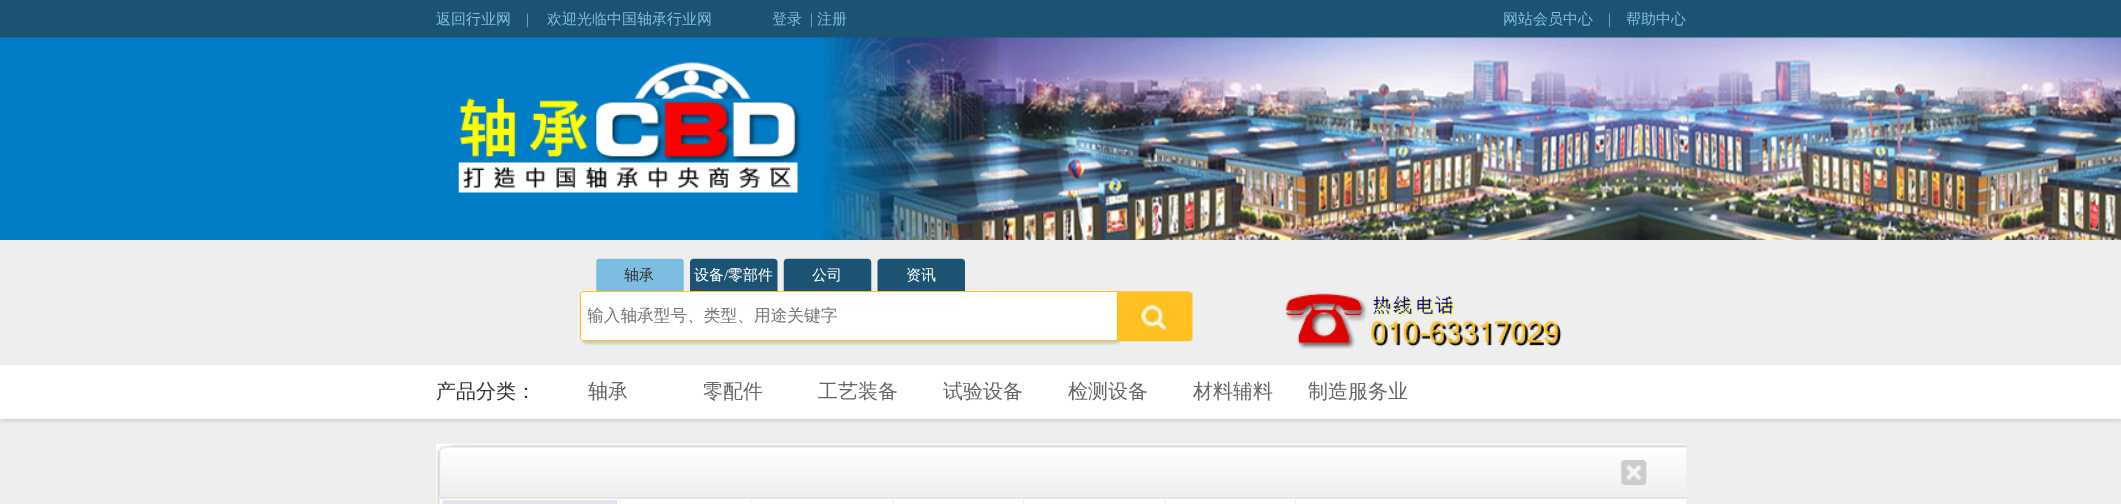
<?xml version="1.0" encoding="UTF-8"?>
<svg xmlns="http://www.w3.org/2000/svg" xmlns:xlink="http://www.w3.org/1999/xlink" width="2121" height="504">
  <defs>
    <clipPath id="clip1"><rect x="588" y="305" width="528" height="23" /></clipPath>
  </defs>
  <rect width="100%" height="100%" fill="#eeeeee" />
  <rect width="2121" height="38" fill="#1d5372" />
  <image x="0" y="37" width="2121" height="203" xlink:href="image1.png" />
  <image x="458" y="62" width="344" height="131" xlink:href="image2.png" />
  <image x="596" y="258" width="88" height="33" xlink:href="image3.png" />
  <image x="690" y="258" width="88" height="33" xlink:href="image4.png" />
  <image x="783" y="258" width="89" height="33" xlink:href="image5.png" />
  <image x="877" y="258" width="88" height="33" xlink:href="image6.png" />
  <rect x="583" y="294" width="537" height="50" rx="4" fill="#cccccc" filter="blur(1px)" />
  <path d="M 584 291.5 h 533.5 v 49 h -533.5 c -2 0 -3.5 -1.5 -3.5 -3.5 v -42 c 0 -2 1.5 -3.5 3.5 -3.5 z" fill="#ffffff" stroke="#ffc120" />
  <image x="1117" y="291" width="76" height="51" xlink:href="image7.png" />
  <image x="1285" y="293" width="277" height="56" xlink:href="image8.png" />
  <rect y="368" width="2121" height="53" fill="#cccccc" filter="blur(2px)" />
  <rect y="365" width="2121" height="54" fill="#ffffff" />
  <image x="436" y="443" width="1251" height="61" xlink:href="image9.png" />
  <image x="1621" y="460" width="26" height="25" xlink:href="image10.png" />
  <rect x="439" y="496" width="1" height="1" fill="#eeeeee" />
  <rect x="439" y="498" width="1" height="6" fill="#eeeeee" />
  <image x="442" y="500" width="176" height="4" xlink:href="image11.png" />
  <rect x="620" y="498" width="1" height="6" fill="#eeeeee" />
  <rect x="750" y="498" width="1" height="6" fill="#eeeeee" />
  <rect x="893" y="498" width="1" height="6" fill="#eeeeee" />
  <rect x="1023" y="498" width="1" height="6" fill="#eeeeee" />
  <rect x="1165" y="498" width="1" height="6" fill="#eeeeee" />
  <rect x="1295" y="498" width="1" height="6" fill="#eeeeee" />
  <text x="436" y="24" style="font-family: WenQuanYi Zen Hei; font-size: 15px; font-weight: 500; fill: #7dbde1">返回行业网</text>
  <text x="526" y="24" style="font-family: Liberation Serif; font-size: 15px; fill: #7dbde1">|</text>
  <text x="547" y="24" style="font-family: WenQuanYi Zen Hei; font-size: 15px; font-weight: 500; fill: #7dbde1">欢迎光临中国轴承行业网</text>
  <text x="772" y="24" style="font-family: WenQuanYi Zen Hei; font-size: 15px; font-weight: 500; fill: #7dbde1">登录</text>
  <text x="810" y="24" style="font-family: Liberation Serif; font-size: 15px; fill: #7dbde1">|</text>
  <text x="817" y="24" style="font-family: WenQuanYi Zen Hei; font-size: 15px; font-weight: 500; fill: #7dbde1">注册</text>
  <text x="1503" y="24" style="font-family: WenQuanYi Zen Hei; font-size: 15px; font-weight: 500; fill: #7dbde1">网站会员中心</text>
  <text x="1608" y="24" style="font-family: Liberation Serif; font-size: 15px; fill: #7dbde1">|</text>
  <text x="1626" y="24" style="font-family: WenQuanYi Zen Hei; font-size: 15px; font-weight: 500; fill: #7dbde1">帮助中心</text>
  <text x="624" y="280" style="font-family: WenQuanYi Zen Hei; font-size: 15px; font-weight: 500; fill: #333333">轴承</text>
  <text x="694" y="280" style="font-family: WenQuanYi Zen Hei; font-size: 15px; font-weight: 500; fill: #ffffff">设备</text>
  <text x="724" y="280" style="font-family: Liberation Serif; font-size: 15px; fill: #ffffff">/</text>
  <text x="728" y="280" style="font-family: WenQuanYi Zen Hei; font-size: 15px; font-weight: 500; fill: #ffffff">零部件</text>
  <text x="812" y="280" style="font-family: WenQuanYi Zen Hei; font-size: 15px; font-weight: 500; fill: #ffffff">公司</text>
  <text x="906" y="280" style="font-family: WenQuanYi Zen Hei; font-size: 15px; font-weight: 500; fill: #ffffff">资讯</text>
  <g clip-path="url(#clip1)">
    <text x="587" y="321" style="font-family: WenQuanYi Zen Hei; font-size: 16.7px; font-weight: 500; fill: #757575">输入轴承型号、类型、用途关键字</text>
  </g>
  <text x="436" y="398" style="font-family: WenQuanYi Zen Hei; font-size: 20px; font-weight: 500; fill: #333333">产品分类：</text>
  <text x="588" y="398" style="font-family: WenQuanYi Zen Hei; font-size: 20px; font-weight: 500; fill: #666666">轴承</text>
  <text x="703" y="398" style="font-family: WenQuanYi Zen Hei; font-size: 20px; font-weight: 500; fill: #666666">零配件</text>
  <text x="818" y="398" style="font-family: WenQuanYi Zen Hei; font-size: 20px; font-weight: 500; fill: #666666">工艺装备</text>
  <text x="943" y="398" style="font-family: WenQuanYi Zen Hei; font-size: 20px; font-weight: 500; fill: #666666">试验设备</text>
  <text x="1068" y="398" style="font-family: WenQuanYi Zen Hei; font-size: 20px; font-weight: 500; fill: #666666">检测设备</text>
  <text x="1193" y="398" style="font-family: WenQuanYi Zen Hei; font-size: 20px; font-weight: 500; fill: #666666">材料辅料</text>
  <text x="1308" y="398" style="font-family: WenQuanYi Zen Hei; font-size: 20px; font-weight: 500; fill: #666666">制造服务业</text>
</svg>
